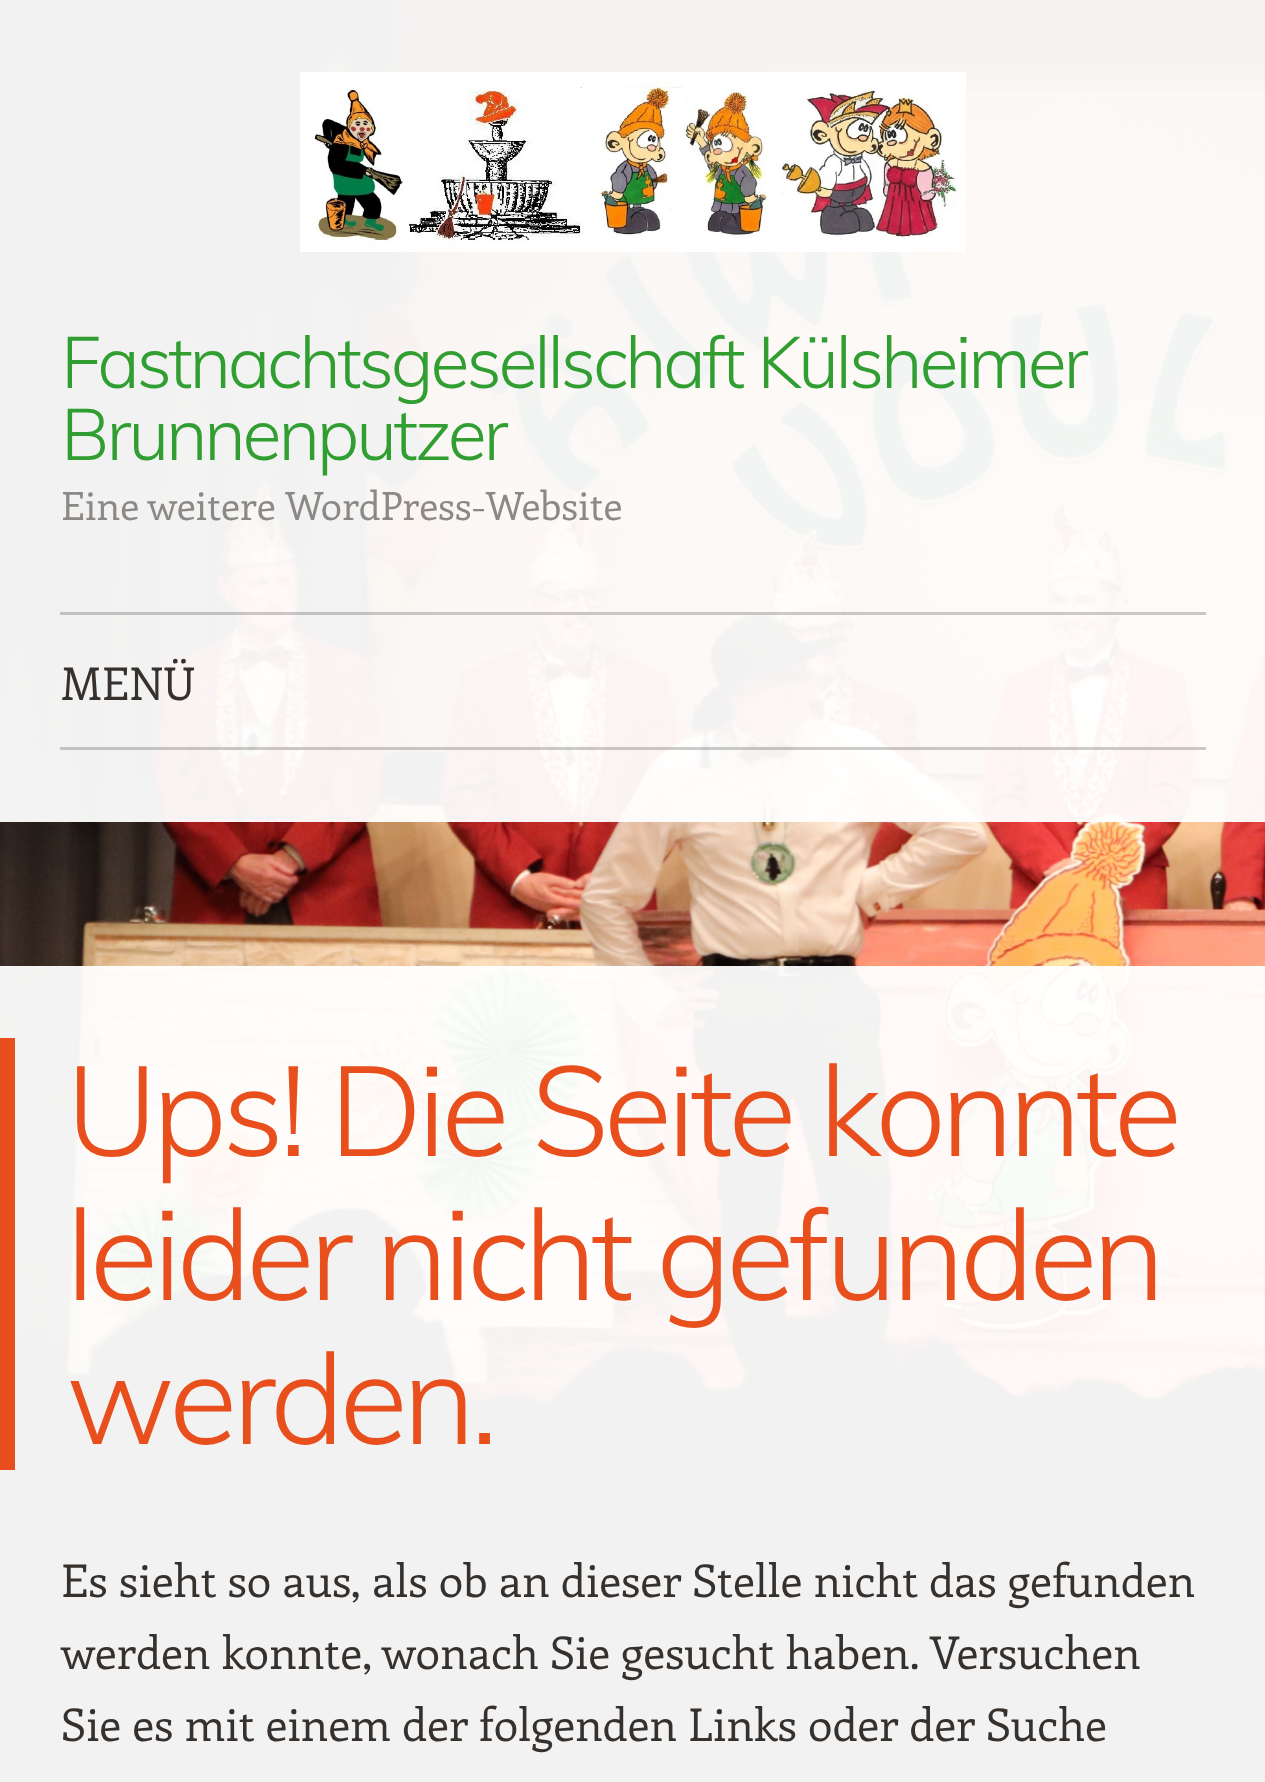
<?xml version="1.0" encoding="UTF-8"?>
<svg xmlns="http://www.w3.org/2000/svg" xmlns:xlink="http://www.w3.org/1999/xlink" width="1265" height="1782">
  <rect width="100%" height="100%" fill="#ffffff" />
  <image x="0" y="0" width="1265" height="1782" xlink:href="image1.png" />
  <rect width="1265" height="822" fill="#ffffff" fill-opacity="0.95" />
  <image x="300" y="72" width="666" height="180" xlink:href="image2.png" />
  <rect x="60" y="612" width="1146" height="3" fill="#000000" fill-opacity="0.2" />
  <rect x="60" y="747" width="1146" height="3" fill="#000000" fill-opacity="0.2" />
  <rect y="966" width="1265" height="816" fill="#ffffff" fill-opacity="0.95" />
  <rect y="1038" width="15" height="432" fill="#e94f1d" />
  <text x="61" y="388" style="font-family: Muli; font-size: 72px; font-weight: 300; letter-spacing: -3.25px; fill: #319e32">Fastnachtsgesellschaft Külsheimer</text>
  <text x="61" y="460" style="font-family: Muli; font-size: 72px; font-weight: 300; letter-spacing: -3.25px; fill: #319e32">Brunnenputzer</text>
  <text x="61" y="520" style="font-family: Enriqueta; font-size: 39px; fill: #8c8885">Eine weitere WordPress-Website</text>
  <text x="61" y="700" style="font-family: Enriqueta; font-size: 45px; fill: #36312d">MENÜ</text>
  <text x="66" y="1156" style="font-family: Muli; font-size: 126px; font-weight: 300; letter-spacing: -5px; fill: #e94f1d">Ups! Die Seite konnte</text>
  <text x="66" y="1300" style="font-family: Muli; font-size: 126px; font-weight: 300; letter-spacing: -5px; fill: #e94f1d">leider nicht gefunden</text>
  <text x="66" y="1444" style="font-family: Muli; font-size: 126px; font-weight: 300; letter-spacing: -5px; fill: #e94f1d">werden.</text>
  <text x="61" y="1597" style="font-family: Enriqueta; font-size: 45px; fill: #36312d">Es sieht so aus, als ob an dieser Stelle nicht das gefunden</text>
  <text x="61" y="1669" style="font-family: Enriqueta; font-size: 45px; fill: #36312d">werden konnte, wonach Sie gesucht haben. Versuchen</text>
  <text x="61" y="1741" style="font-family: Enriqueta; font-size: 45px; fill: #36312d">Sie es mit einem der folgenden Links oder der Suche</text>
</svg>
